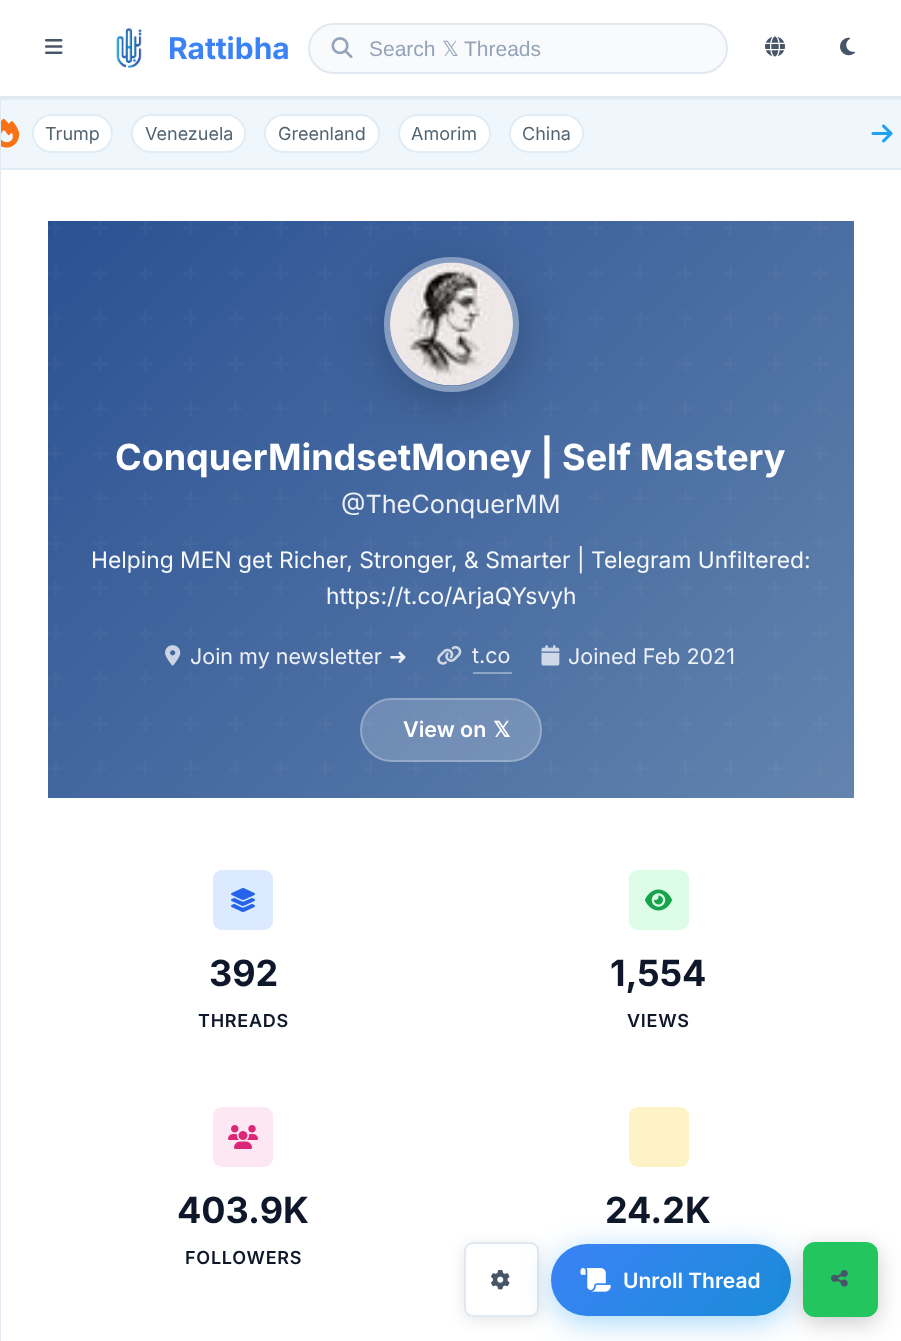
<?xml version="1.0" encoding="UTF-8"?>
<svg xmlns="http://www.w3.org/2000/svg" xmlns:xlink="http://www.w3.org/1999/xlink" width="901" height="1341">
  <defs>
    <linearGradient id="g1" gradientUnits="userSpaceOnUse" x1="105" y1="164" x2="797" y2="855"><stop offset="0" stop-color="#2b5193" /><stop offset="1" stop-color="#6284ae" /></linearGradient>
    <clipPath id="clip1"><path d="M 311 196 h 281 v 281 h -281 z m 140.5 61 c 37.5 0 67.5 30 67.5 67.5 c 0 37.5 -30 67.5 -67.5 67.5 c -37.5 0 -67.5 -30 -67.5 -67.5 c 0 -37.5 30 -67.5 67.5 -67.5 z" clip-rule="evenodd" /></clipPath>
    <linearGradient id="g2" gradientUnits="userSpaceOnUse" x1="593" y1="1202" x2="749" y2="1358"><stop offset="0" stop-color="#3b82f6" /><stop offset="1" stop-color="#1a8cd8" /></linearGradient>
  </defs>
  <rect width="100%" height="100%" fill="#ffffff" />
  <rect x="1" y="100" width="900" height="68" fill="#f0f7fc" />
  <rect x="-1" y="99" width="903" height="70" fill="none" stroke="#e1ecf4" stroke-width="2" />
  <rect y="98" width="1" height="1243" fill="#e2e8f0" />
  <rect y="96" width="901" height="2" fill="#e2e8f0" />
  <image x="45" y="39" width="18" height="15" xlink:href="image1.png" />
  <image x="116" y="27" width="26" height="42" xlink:href="image2.png" />
  <rect x="309" y="24" width="418" height="49" rx="24.5" fill="#f8fafc" stroke="#e2e8f0" stroke-width="2" />
  <image x="331" y="37" width="22" height="22" xlink:href="image3.png" />
  <image x="765" y="36" width="20" height="21" xlink:href="image4.png" />
  <image x="840" y="37" width="15" height="19" xlink:href="image5.png" />
  <image x="1" y="118" width="19" height="30" xlink:href="image6.png" />
  <rect x="33" y="115" width="79" height="37" rx="18.5" fill="#ffffff" stroke="#e1ecf4" stroke-width="2" />
  <rect x="132" y="115" width="113" height="37" rx="18.5" fill="#ffffff" stroke="#e1ecf4" stroke-width="2" />
  <rect x="265" y="115" width="114" height="37" rx="18.5" fill="#ffffff" stroke="#e1ecf4" stroke-width="2" />
  <rect x="399" y="115" width="91" height="37" rx="18.5" fill="#ffffff" stroke="#e1ecf4" stroke-width="2" />
  <rect x="510" y="115" width="73" height="37" rx="18.5" fill="#ffffff" stroke="#e1ecf4" stroke-width="2" />
  <image x="871" y="124" width="22" height="19" xlink:href="image7.png" />
  <rect x="48" y="221" width="806" height="577" fill="url(#g1)" />
  <image x="48" y="221" width="780" height="555" xlink:href="image8.png" />
  <g clip-path="url(#clip1)">
    <rect x="384" y="269" width="135" height="135" rx="67.5" fill="#000000" fill-opacity="0.2" filter="blur(24px)" />
  </g>
  <circle cx="451.5" cy="324.5" r="67.5" fill="#ffffff" fill-opacity="0.1" />
  <circle cx="451.5" cy="324.5" r="64.5" fill="none" stroke="#ffffff" stroke-opacity="0.3" stroke-width="6" />
  <image x="390" y="262" width="123" height="124" xlink:href="image9.png" />
  <image x="165" y="645" width="16" height="21" xlink:href="image10.png" />
  <image x="437" y="646" width="25" height="19" xlink:href="image11.png" />
  <rect x="473" y="672" width="39" height="2" fill="#ffffff" fill-opacity="0.36" />
  <image x="541" y="645" width="19" height="21" xlink:href="image12.png" />
  <rect x="360" y="698" width="182" height="64" rx="32" fill="#ffffff" fill-opacity="0.2" />
  <rect x="361" y="699" width="180" height="62" rx="31" fill="none" stroke="#ffffff" stroke-opacity="0.25" stroke-width="2" />
  <rect x="213" y="870" width="60" height="60" rx="9" fill="#dbeafe" />
  <image x="231" y="888" width="24" height="24" xlink:href="image13.png" />
  <rect x="629" y="870" width="60" height="60" rx="9" fill="#dcfce7" />
  <image x="645" y="889" width="27" height="22" xlink:href="image14.png" />
  <rect x="213" y="1107" width="60" height="60" rx="9" fill="#fce7f3" />
  <image x="228" y="1125" width="30" height="24" xlink:href="image15.png" />
  <rect x="629" y="1107" width="60" height="60" rx="9" fill="#fef3c7" />
  <rect x="464" y="1245" width="75" height="75" rx="9" fill="#000000" fill-opacity="0.1" filter="blur(7.5px)" />
  <rect x="465" y="1243" width="73" height="73" rx="8" fill="#ffffff" stroke="#e2e8f0" stroke-width="2" />
  <image x="491" y="1269" width="19" height="21" xlink:href="image16.png" />
  <rect x="551" y="1250" width="240" height="72" rx="36" fill="#1d9bf0" fill-opacity="0.4" filter="blur(15px)" />
  <rect x="551" y="1244" width="240" height="72" rx="36" fill="url(#g2)" />
  <image x="580" y="1268" width="31" height="24" xlink:href="image17.png" />
  <rect x="803" y="1248" width="75" height="75" rx="12" fill="#000000" fill-opacity="0.2" filter="blur(11px)" />
  <rect x="803" y="1242" width="75" height="75" rx="12" fill="#22c55e" />
  <image x="831" y="1270" width="17" height="17" xlink:href="image18.png" />
  <text x="168" y="59" style="font-family: Inter; font-size: 30px; font-weight: bold; fill: #3b82f6">Rattibha</text>
  <text x="369" y="56" style="font-family: Liberation Sans; font-size: 21px; fill: #94a3b8">Search</text>
  <text x="442" y="56" style="font-family: DejaVu Sans; font-size: 21px; fill: #94a3b8">𝕏</text>
  <text x="464" y="56" style="font-family: Liberation Sans; font-size: 21px; fill: #94a3b8">Threads</text>
  <text x="45" y="140" style="font-family: Inter; font-size: 18px; fill: #536471">Trump</text>
  <text x="145" y="140" style="font-family: Inter; font-size: 18px; fill: #536471">Venezuela</text>
  <text x="278" y="140" style="font-family: Inter; font-size: 18px; fill: #536471">Greenland</text>
  <text x="411" y="140" style="font-family: Inter; font-size: 18px; fill: #536471">Amorim</text>
  <text x="522" y="140" style="font-family: Inter; font-size: 18px; fill: #536471">China</text>
  <text x="115" y="470" style="font-family: Inter; font-size: 36px; font-weight: bold; fill: #ffffff">ConquerMindsetMoney | Self Mastery</text>
  <text x="341" y="513" style="font-family: Inter; font-size: 25.25px; fill: #edf0f6">@TheConquerMM</text>
  <text x="91" y="568" style="font-family: Inter; font-size: 22.8px; fill: #f6f8fa">Helping MEN get Richer, Stronger, &amp; Smarter | Telegram Unfiltered:</text>
  <text x="326" y="604" style="font-family: Inter; font-size: 22.8px; fill: #f6f8fa">https://t.co/ArjaQYsvyh</text>
  <text x="190" y="664" style="font-family: Inter; font-size: 21.5px; fill: #edf0f6">Join my newsletter</text>
  <text x="389" y="664" style="font-family: DejaVu Sans; font-size: 21.5px; fill: #edf0f6">➜</text>
  <text x="472" y="663" style="font-family: Inter; font-size: 21.5px; fill: #edf0f6">t.co</text>
  <text x="568" y="664" style="font-family: Inter; font-size: 21.5px; fill: #edf0f6">Joined Feb 2021</text>
  <text x="403" y="737" style="font-family: Inter; font-size: 21.5px; font-weight: 600; fill: #ffffff">View on</text>
  <text x="493" y="737" style="font-family: DejaVu Sans; font-size: 21.5px; font-weight: bold; fill: #ffffff">𝕏</text>
  <text x="209" y="986" style="font-family: Inter; font-size: 36px; font-weight: bold; fill: #0f172a">392</text>
  <text x="198" y="1027" style="font-family: Inter; font-size: 18px; font-weight: 600; letter-spacing: 0.75px; fill: #0f172a">THREADS</text>
  <text x="610" y="986" style="font-family: Inter; font-size: 36px; font-weight: bold; fill: #0f172a">1,554</text>
  <text x="627" y="1027" style="font-family: Inter; font-size: 18px; font-weight: 600; letter-spacing: 0.75px; fill: #0f172a">VIEWS</text>
  <text x="177" y="1223" style="font-family: Inter; font-size: 36px; font-weight: bold; fill: #0f172a">403.9K</text>
  <text x="185" y="1264" style="font-family: Inter; font-size: 18px; font-weight: 600; letter-spacing: 0.75px; fill: #0f172a">FOLLOWERS</text>
  <text x="605" y="1223" style="font-family: Inter; font-size: 36px; font-weight: bold; fill: #0f172a">24.2K</text>
  <text x="623" y="1288" style="font-family: Inter; font-size: 21px; font-weight: 600; fill: #ffffff">Unroll Thread</text>
</svg>
